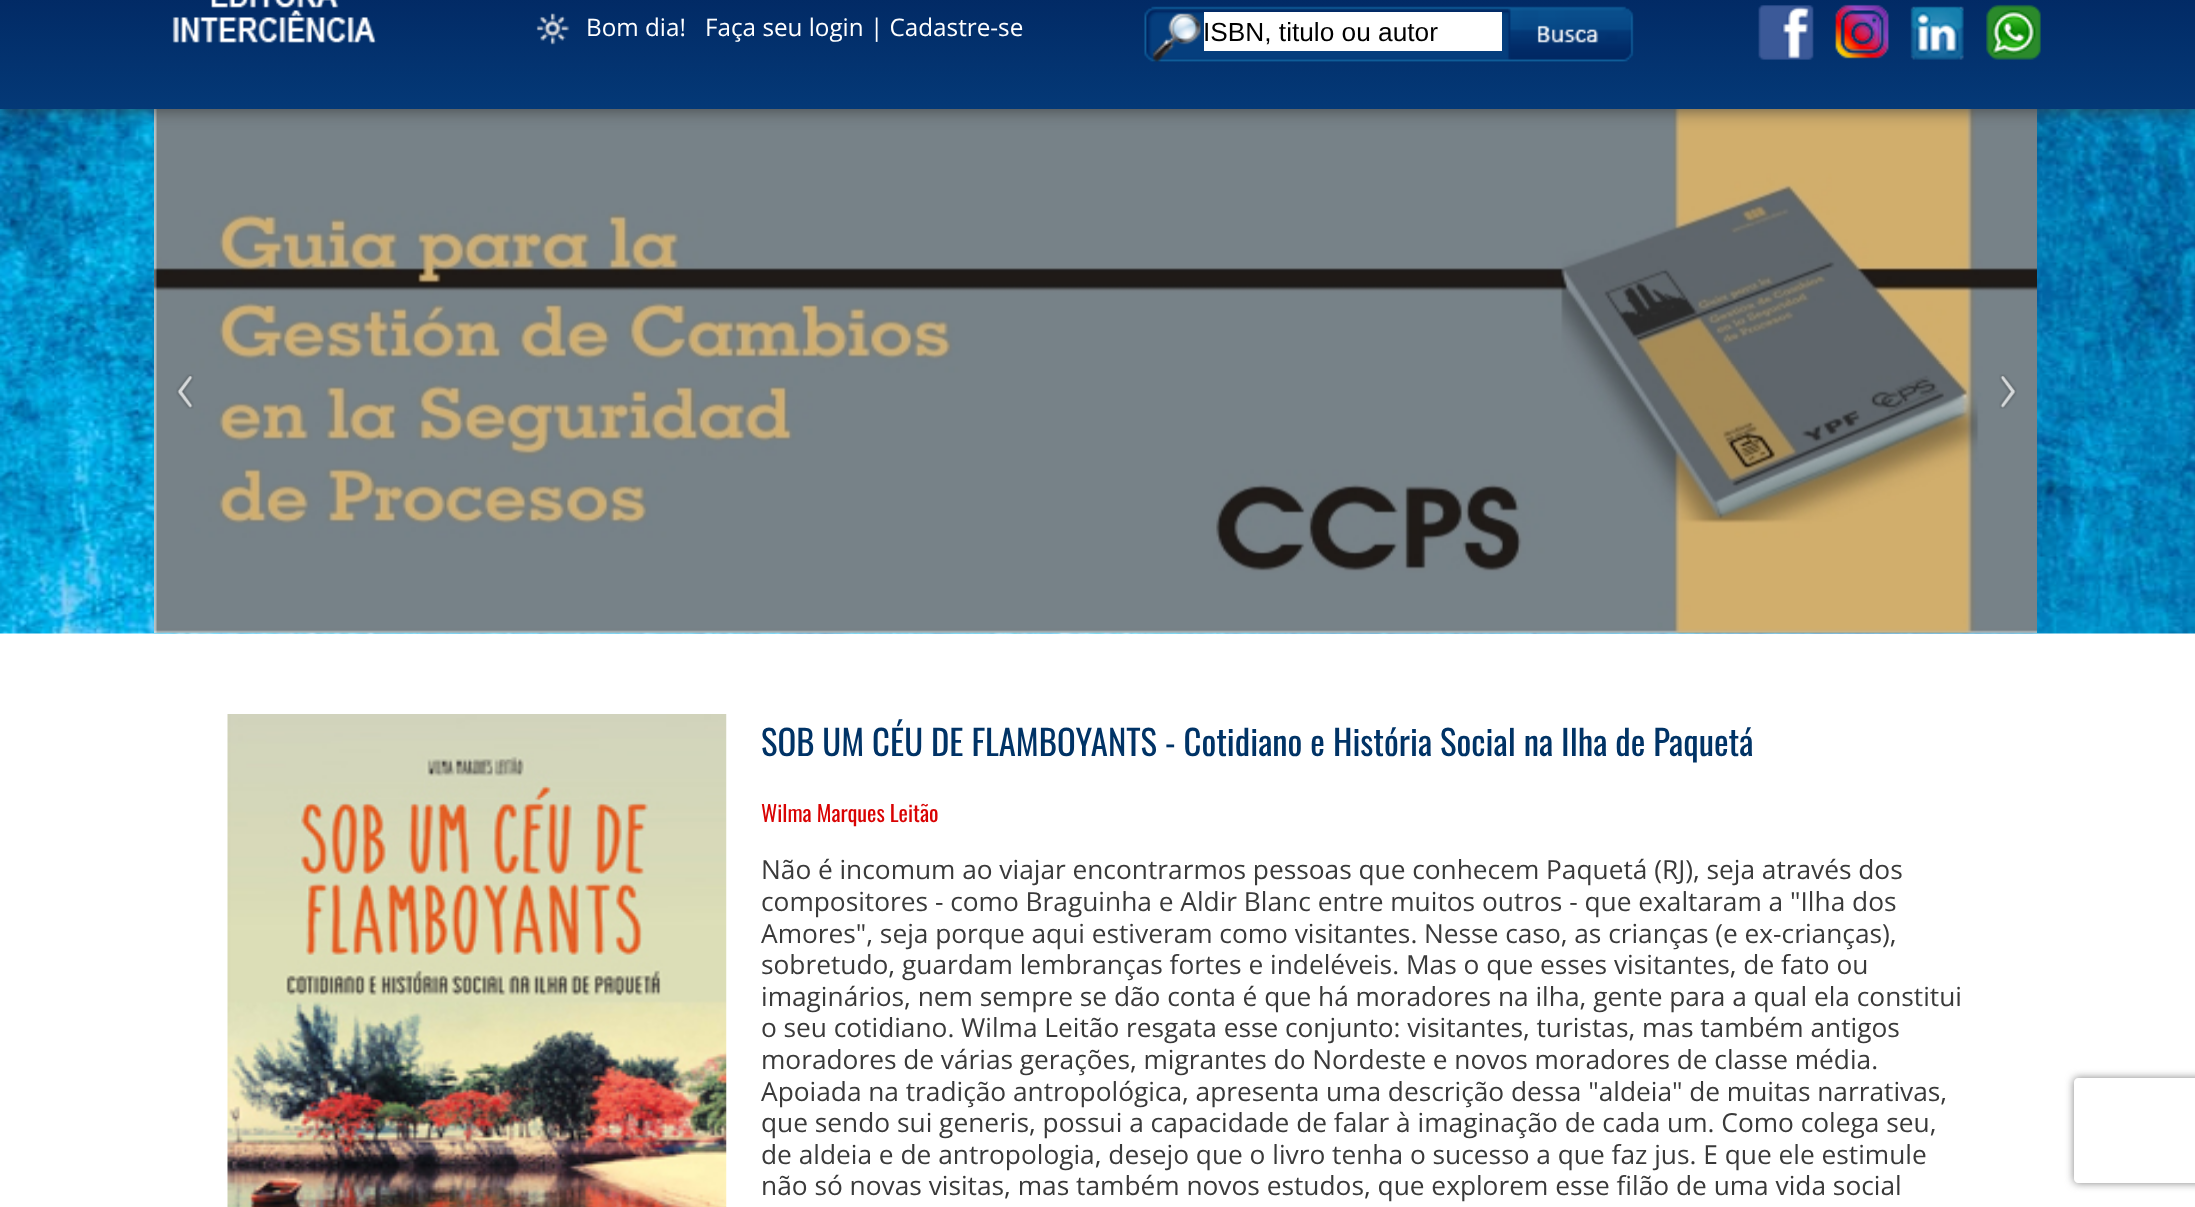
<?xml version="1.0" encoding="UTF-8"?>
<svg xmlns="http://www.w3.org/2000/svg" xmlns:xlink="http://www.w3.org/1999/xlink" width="2195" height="1207">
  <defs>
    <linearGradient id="g1" gradientUnits="userSpaceOnUse" x1="1098" y1="-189" x2="1098" y2="109"><stop offset="0" stop-color="#021a43" /><stop offset="0.5" stop-color="#01255f" /><stop offset="1" stop-color="#043977" /></linearGradient>
    <clipPath id="clip1"><path d="M 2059 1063 h 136 v 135 h -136 z m 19 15 h 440 c 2 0 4 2 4 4 v 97 c 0 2 -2 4 -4 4 h -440 c -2 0 -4 -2 -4 -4 v -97 c 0 -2 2 -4 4 -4 z" clip-rule="evenodd" /></clipPath>
  </defs>
  <rect width="100%" height="100%" fill="#ffffff" />
  <image x="0" y="109" width="2195" height="525" xlink:href="image9.png" />
  <image x="154" y="109" width="1883" height="524" xlink:href="image10.png" />
  <rect y="-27" width="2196" height="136" fill="#333333" fill-opacity="0.8" filter="blur(9px)" />
  <rect width="2195" height="109" fill="url(#g1)" />
  <image x="172" y="0" width="205" height="43" xlink:href="image1.png" />
  <image x="536" y="13" width="34" height="32" xlink:href="image2.png" />
  <image x="1144" y="6" width="490" height="56" xlink:href="image3.png" />
  <rect x="1204" y="12" width="298" height="39" fill="#ffffff" />
  <image x="1537" y="25" width="62" height="18" xlink:href="image4.png" />
  <image x="1758" y="5" width="56" height="55" xlink:href="image5.png" />
  <image x="1835" y="4" width="54" height="55" xlink:href="image6.png" />
  <image x="1910" y="6" width="54" height="54" xlink:href="image7.png" />
  <image x="1986" y="4" width="55" height="56" xlink:href="image8.png" />
  <image x="176" y="374" width="18" height="35" xlink:href="image11.png" />
  <image x="1999" y="374" width="18" height="35" xlink:href="image12.png" />
  <image x="227" y="714" width="500" height="493" xlink:href="image13.png" />
  <g clip-path="url(#clip1)">
    <rect x="2074" y="1078" width="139" height="105" rx="4" fill="#808080" filter="blur(4.5px)" />
  </g>
  <text x="586" y="36" style="font-family: Open Sans; font-size: 24.25px; fill: #ffffff">Bom dia!</text>
  <text x="705" y="36" style="font-family: Open Sans; font-size: 24.25px; fill: #ffffff">Faça seu login | Cadastre-se</text>
  <text x="1203" y="41" style="font-family: Liberation Sans; font-size: 26.25px; fill: #000000">ISBN, titulo ou autor</text>
  <text x="761" y="756" style="font-family: Oswald; font-size: 34.75px; fill: #003366">SOB UM CÉU DE FLAMBOYANTS - Cotidiano e História Social na Ilha de Paquetá</text>
  <text x="761" y="822" style="font-family: Oswald; font-size: 22.25px; fill: #d90303">Wilma Marques Leitão</text>
  <text x="761" y="879" word-spacing="-0.1" style="font-family: Open Sans; font-size: 26.3px; fill: #3a3a3a">Não é incomum ao viajar encontrarmos pessoas que conhecem Paquetá (RJ), seja através dos</text>
  <text x="761" y="911" style="font-family: Open Sans; font-size: 26.3px; fill: #3a3a3a">compositores - como Braguinha e Aldir Blanc entre muitos outros - que exaltaram a "Ilha dos</text>
  <text x="761" y="943" word-spacing="-0.1" style="font-family: Open Sans; font-size: 26.3px; fill: #3a3a3a">Amores", seja porque aqui estiveram como visitantes. Nesse caso, as crianças (e ex-crianças),</text>
  <text x="761" y="974" style="font-family: Open Sans; font-size: 26.3px; fill: #3a3a3a">sobretudo, guardam lembranças fortes e indeléveis. Mas o que esses visitantes, de fato ou</text>
  <text x="761" y="1006" style="font-family: Open Sans; font-size: 26.3px; fill: #3a3a3a">imaginários, nem sempre se dão conta é que há moradores na ilha, gente para a qual ela constitui</text>
  <text x="761" y="1037" word-spacing="-0.1" style="font-family: Open Sans; font-size: 26.3px; fill: #3a3a3a">o seu cotidiano. Wilma Leitão resgata esse conjunto: visitantes, turistas, mas também antigos</text>
  <text x="761" y="1069" word-spacing="-0.1" style="font-family: Open Sans; font-size: 26.3px; fill: #3a3a3a">moradores de várias gerações, migrantes do Nordeste e novos moradores de classe média.</text>
  <text x="761" y="1101" word-spacing="-0.1" style="font-family: Open Sans; font-size: 26.3px; fill: #3a3a3a">Apoiada na tradição antropológica, apresenta uma descrição dessa "aldeia" de muitas narrativas,</text>
  <text x="761" y="1132" style="font-family: Open Sans; font-size: 26.3px; fill: #3a3a3a">que sendo sui generis, possui a capacidade de falar à imaginação de cada um. Como colega seu,</text>
  <text x="761" y="1164" style="font-family: Open Sans; font-size: 26.3px; fill: #3a3a3a">de aldeia e de antropologia, desejo que o livro tenha o sucesso a que faz jus. E que ele estimule</text>
  <text x="761" y="1195" style="font-family: Open Sans; font-size: 26.3px; fill: #3a3a3a">não só novas visitas, mas também novos estudos, que explorem esse filão de uma vida social</text>
</svg>
